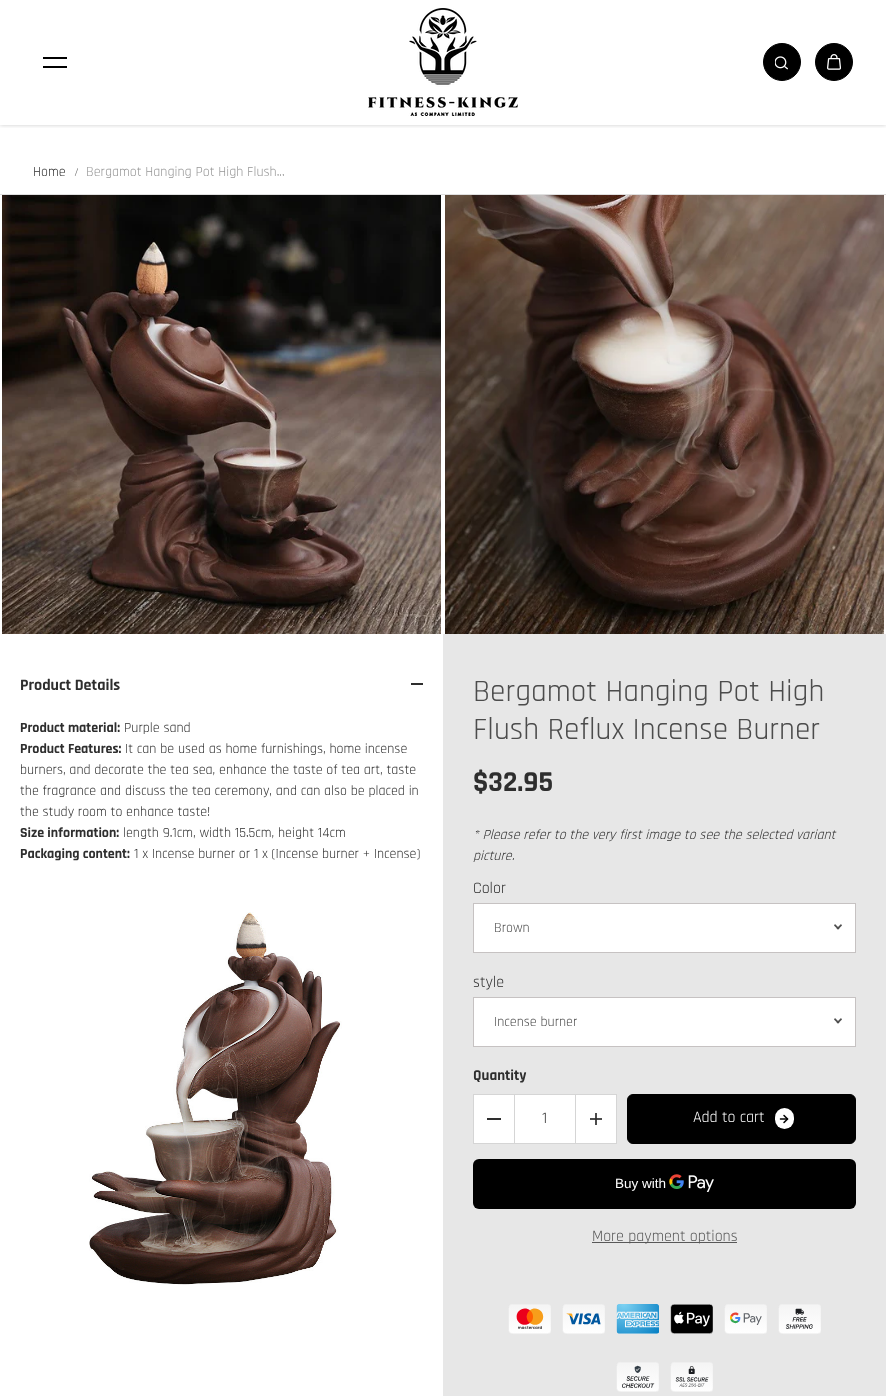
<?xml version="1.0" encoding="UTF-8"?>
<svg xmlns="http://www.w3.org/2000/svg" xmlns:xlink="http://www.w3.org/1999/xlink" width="886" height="1396">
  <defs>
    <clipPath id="clip1"><rect x="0" y="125" width="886" height="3" /></clipPath>
  </defs>
  <rect width="100%" height="100%" fill="#ffffff" />
  <g clip-path="url(#clip1)">
    <rect width="886" height="125" fill="#000000" fill-opacity="0.21" filter="blur(2px)" />
  </g>
  <rect x="43" y="57" width="24" height="2" fill="#000000" />
  <rect x="43" y="66" width="24" height="2" fill="#000000" />
  <image x="368" y="8" width="150" height="108" xlink:href="image1.png" />
  <circle cx="782" cy="62" r="18.5" fill="#000000" stroke="#000000" />
  <image x="775" y="56" width="13" height="14" xlink:href="image2.png" />
  <circle cx="834" cy="62" r="18.5" fill="#000000" stroke="#000000" />
  <image x="827" y="54" width="14" height="16" xlink:href="image3.png" />
  <rect y="194" width="886" height="1" fill="#dfdfdf" />
  <image x="2" y="195" width="439" height="439" xlink:href="image4.png" />
  <image x="445" y="195" width="439" height="439" xlink:href="image5.png" />
  <rect x="443" y="634" width="443" height="762" fill="#e7e7e7" />
  <rect x="411" y="683" width="12" height="2" fill="#2e2e2e" />
  <image x="89" y="912" width="253" height="373" xlink:href="image6.png" />
  <rect x="473.5" y="903.5" width="382" height="49" fill="#ffffff" stroke="#c6c2c2" />
  <path d="M 841 924 l 1 1.5 l -4 4 l -1.5 -1 z" fill="#4e4e4e" />
  <path d="M 835 924 l 4.5 4.5 l -1.5 1 l -4 -4 z" fill="#4e4e4e" />
  <rect x="473.5" y="997.5" width="382" height="49" fill="#ffffff" stroke="#c6c2c2" />
  <path d="M 841 1018 l 1 1.5 l -4 4 l -1.5 -1 z" fill="#4e4e4e" />
  <path d="M 835 1018 l 4.5 4.5 l -1.5 1 l -4 -4 z" fill="#4e4e4e" />
  <rect x="473.5" y="1094.5" width="41" height="49" fill="#ffffff" stroke="#d5d5d5" />
  <rect x="487" y="1118" width="14" height="2" fill="#2e2e2e" />
  <rect x="515" y="1095" width="60" height="48" fill="#ffffff" />
  <rect x="515" y="1094" width="60" height="1" fill="#d5d5d5" />
  <rect x="515" y="1143" width="60" height="1" fill="#d5d5d5" />
  <rect x="575.5" y="1094.5" width="41" height="49" fill="#ffffff" stroke="#d5d5d5" />
  <image x="590" y="1113" width="12" height="12" xlink:href="image7.png" />
  <rect x="627.5" y="1094.5" width="228" height="49" rx="5.5" fill="#000000" stroke="#000000" />
  <rect x="775" y="1108" width="19" height="21" rx="9.5" fill="#ffffff" />
  <image x="779" y="1114" width="10" height="10" xlink:href="image8.png" />
  <rect x="473" y="1159" width="383" height="50" rx="6" fill="#000000" />
  <image x="669" y="1174" width="45" height="18" xlink:href="image9.png" />
  <rect x="592" y="1242" width="145" height="1" fill="#585858" />
  <image x="508" y="1304" width="313" height="88" xlink:href="image10.png" />
  <text x="33" y="176" style="font-family: Rajdhani; font-size: 14px; fill: #2e2e2e">Home</text>
  <text x="74" y="176" style="font-family: Rajdhani; font-size: 12px; fill: #6d6d6d">/</text>
  <text x="86" y="176" style="font-family: Rajdhani; font-size: 14px; fill: #979797">Bergamot Hanging Pot High Flush...</text>
  <text x="20" y="690" style="font-family: Rajdhani; font-size: 16px; font-weight: bold; fill: #2e2e2e">Product Details</text>
  <text x="20" y="732" style="font-family: Rajdhani; font-size: 14px; font-weight: bold; fill: #2e2e2e">Product material:</text>
  <text x="124" y="732" style="font-family: Rajdhani; font-size: 14px; fill: #2e2e2e">Purple sand</text>
  <text x="20" y="753" style="font-family: Rajdhani; font-size: 14px; font-weight: bold; fill: #2e2e2e">Product Features:</text>
  <text x="125" y="753" style="font-family: Rajdhani; font-size: 14px; fill: #2e2e2e">It can be used as home furnishings, home incense</text>
  <text x="20" y="774" style="font-family: Rajdhani; font-size: 14px; fill: #2e2e2e">burners, and decorate the tea sea, enhance the taste of tea art, taste</text>
  <text x="20" y="795" style="font-family: Rajdhani; font-size: 14px; fill: #2e2e2e">the fragrance and discuss the tea ceremony, and can also be placed in</text>
  <text x="20" y="816" style="font-family: Rajdhani; font-size: 14px; fill: #2e2e2e">the study room to enhance taste!</text>
  <text x="20" y="837" style="font-family: Rajdhani; font-size: 14px; font-weight: bold; fill: #2e2e2e">Size information:</text>
  <text x="123" y="837" style="font-family: Rajdhani; font-size: 14px; fill: #2e2e2e">length 9.1cm, width 15.5cm, height 14cm</text>
  <text x="20" y="858" style="font-family: Rajdhani; font-size: 14px; font-weight: bold; fill: #2e2e2e">Packaging content:</text>
  <text x="134" y="858" style="font-family: Rajdhani; font-size: 14px; fill: #2e2e2e">1 x Incense burner or 1 x (Incense burner + Incense)</text>
  <text x="473" y="701" style="font-family: Rajdhani; font-size: 31.25px; fill: #4c4c4c">Bergamot Hanging Pot High</text>
  <text x="473" y="739" style="font-family: Rajdhani; font-size: 31.25px; fill: #4c4c4c">Flush Reflux Incense Burner</text>
  <text x="473" y="791" style="font-family: Rajdhani; font-size: 29px; font-weight: bold; fill: #2e2e2e">$32.95</text>
  <text x="473" y="839" style="font-family: Rajdhani; font-size: 14px; font-style: italic; fill: #2e2e2e">* Please refer to the very first image to see the selected variant</text>
  <text x="473" y="860" style="font-family: Rajdhani; font-size: 14px; font-style: italic; fill: #2e2e2e">picture.</text>
  <text x="473" y="893" style="font-family: Rajdhani; font-size: 16px; fill: #2e2e2e">Color</text>
  <text x="494" y="932" style="font-family: Rajdhani; font-size: 14px; fill: #4c4c4c">Brown</text>
  <text x="473" y="987" style="font-family: Rajdhani; font-size: 16px; fill: #2e2e2e">style</text>
  <text x="494" y="1026" style="font-family: Rajdhani; font-size: 14px; fill: #4c4c4c">Incense burner</text>
  <text x="473" y="1080" style="font-family: Rajdhani; font-size: 15px; font-weight: bold; fill: #2e2e2e">Quantity</text>
  <text x="542" y="1123" style="font-family: Rajdhani; font-size: 16px; fill: #2e2e2e">1</text>
  <text x="693" y="1122" style="font-family: Rajdhani; font-size: 16px; fill: #ffffff">Add to cart</text>
  <text x="615" y="1188" style="font-family: Liberation Sans; font-size: 13.5px; fill: #ffffff">Buy with</text>
  <text x="592" y="1241" style="font-family: Rajdhani; font-size: 16px; fill: #585858">More payment options</text>
</svg>
